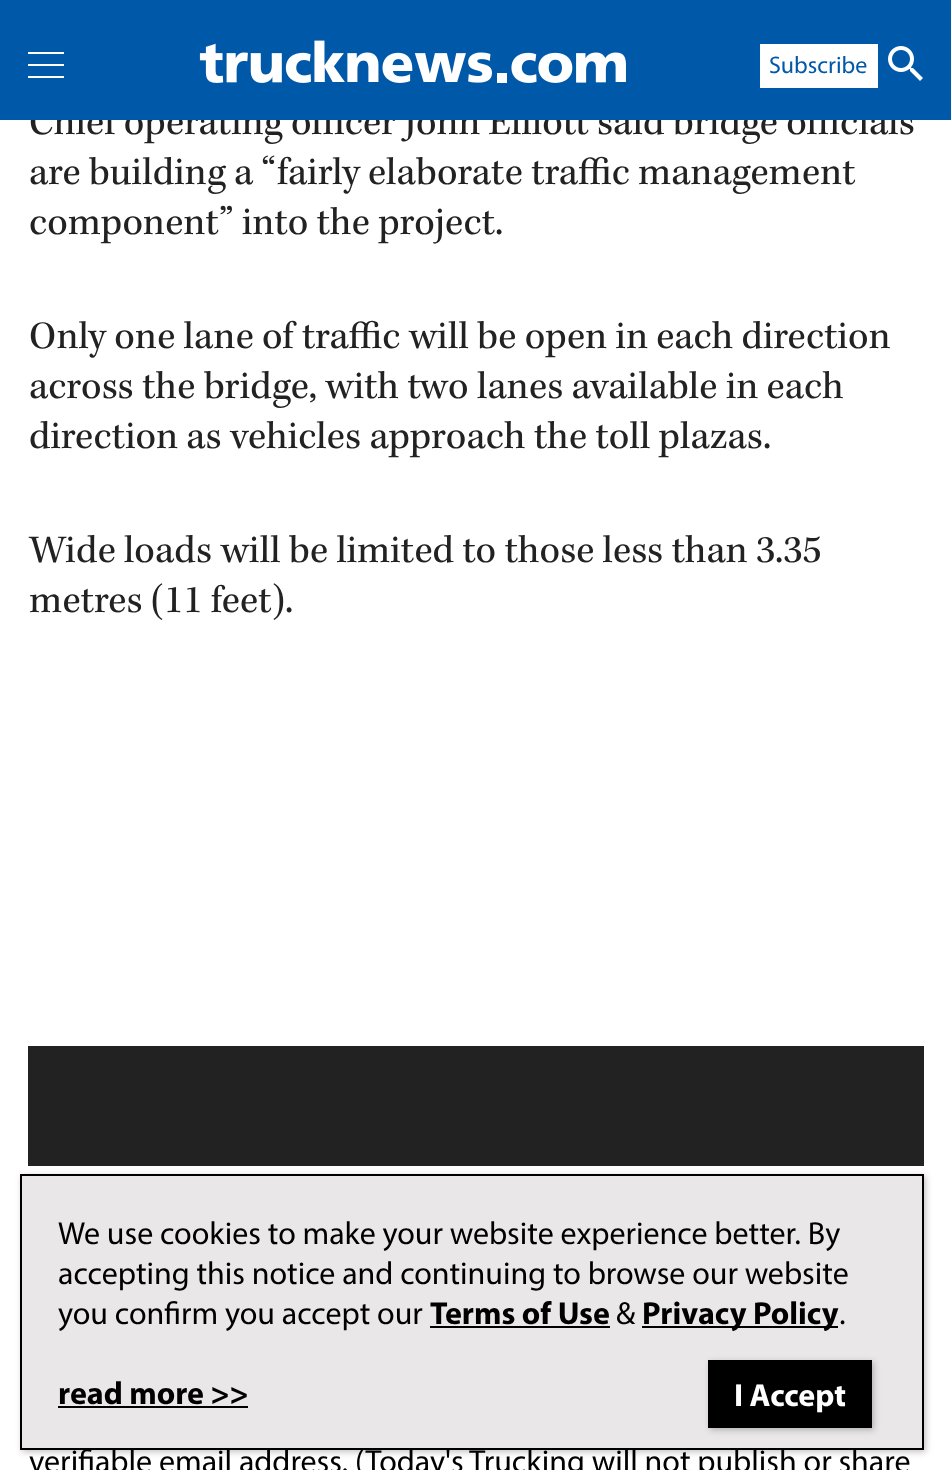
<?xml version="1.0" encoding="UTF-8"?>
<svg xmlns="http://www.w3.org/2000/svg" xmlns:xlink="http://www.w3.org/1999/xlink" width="951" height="1470">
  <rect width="100%" height="100%" fill="#ffffff" />
  <rect x="28" y="1046" width="896" height="120" fill="#222222" />
  <rect x="22" y="1176" width="904" height="276" fill="#020202" fill-opacity="0.23" filter="blur(3px)" />
  <text x="29" y="134" style="font-family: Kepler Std; font-size: 40px; fill: #222222">Chief operating officer John Elliott said bridge officials</text>
  <rect width="951" height="120" fill="#0058a9" />
  <image x="888" y="46" width="35" height="35" xlink:href="image2.png" />
  <image x="199" y="40" width="427" height="43" xlink:href="image1.png" />
  <rect x="760" y="44" width="118" height="44" fill="#ffffff" />
  <text x="769" y="73" style="font-family: Myriad; font-size: 24px; fill: #0058a9">Subscribe</text>
  <rect x="28" y="76" width="36" height="2" fill="#ffffff" />
  <rect x="28" y="64" width="36" height="2" fill="#ffffff" />
  <rect x="28" y="52" width="36" height="2" fill="#ffffff" />
  <text x="29" y="184" style="font-family: Kepler Std; font-size: 40px; fill: #222222">are building a “fairly elaborate traffic management</text>
  <text x="29" y="234" style="font-family: Kepler Std; font-size: 40px; fill: #222222">component” into the project.</text>
  <text x="29" y="348" style="font-family: Kepler Std; font-size: 40px; fill: #222222">Only one lane of traffic will be open in each direction</text>
  <text x="29" y="398" style="font-family: Kepler Std; font-size: 40px; fill: #222222">across the bridge, with two lanes available in each</text>
  <text x="29" y="448" style="font-family: Kepler Std; font-size: 40px; fill: #222222">direction as vehicles approach the toll plazas.</text>
  <text x="29" y="562" style="font-family: Kepler Std; font-size: 40px; fill: #222222">Wide loads will be limited to those less than 3.35</text>
  <text x="29" y="612" style="font-family: Kepler Std; font-size: 40px; fill: #222222">metres (11 feet).</text>
  <text x="29" y="1472" style="font-family: Myriad; font-size: 32px; fill: #000000">verifiable email address. (Today's Trucking will not publish or share</text>
  <rect x="21" y="1175" width="902" height="274" fill="#e9e7e8" stroke="#000000" stroke-width="2" />
  <text x="58" y="1244" style="font-family: Myriad; font-size: 32px; fill: #000000">We use cookies to make your website experience better. By</text>
  <text x="58" y="1284" style="font-family: Myriad; font-size: 32px; fill: #000000">accepting this notice and continuing to browse our website</text>
  <text x="58" y="1324" style="font-family: Myriad; font-size: 32px; fill: #000000">you confirm you accept our</text>
  <text x="430" y="1324" style="font-family: Myriad; font-size: 32px; font-weight: bold; fill: #000000">Terms of Use</text>
  <rect x="430" y="1326" width="180" height="2" fill="#000000" />
  <text x="616" y="1324" style="font-family: Myriad; font-size: 32px; fill: #000000">&amp;</text>
  <rect x="642" y="1326" width="196" height="2" fill="#000000" />
  <text x="642" y="1324" style="font-family: Myriad; font-size: 32px; font-weight: bold; fill: #000000">Privacy Policy</text>
  <text x="839" y="1324" style="font-family: Myriad; font-size: 32px; fill: #000000">.</text>
  <text x="58" y="1404" style="font-family: Myriad; font-size: 32px; font-weight: bold; fill: #000000">read more &gt;&gt;</text>
  <rect x="58" y="1406" width="190" height="2" fill="#000000" />
  <rect x="710" y="1362" width="164" height="68" fill="#020202" fill-opacity="0.23" filter="blur(3px)" />
  <rect x="708" y="1360" width="164" height="68" fill="#000000" />
  <text x="734" y="1406" style="font-family: Myriad; font-size: 32px; font-weight: bold; fill: #ffffff">I Accept</text>
</svg>
